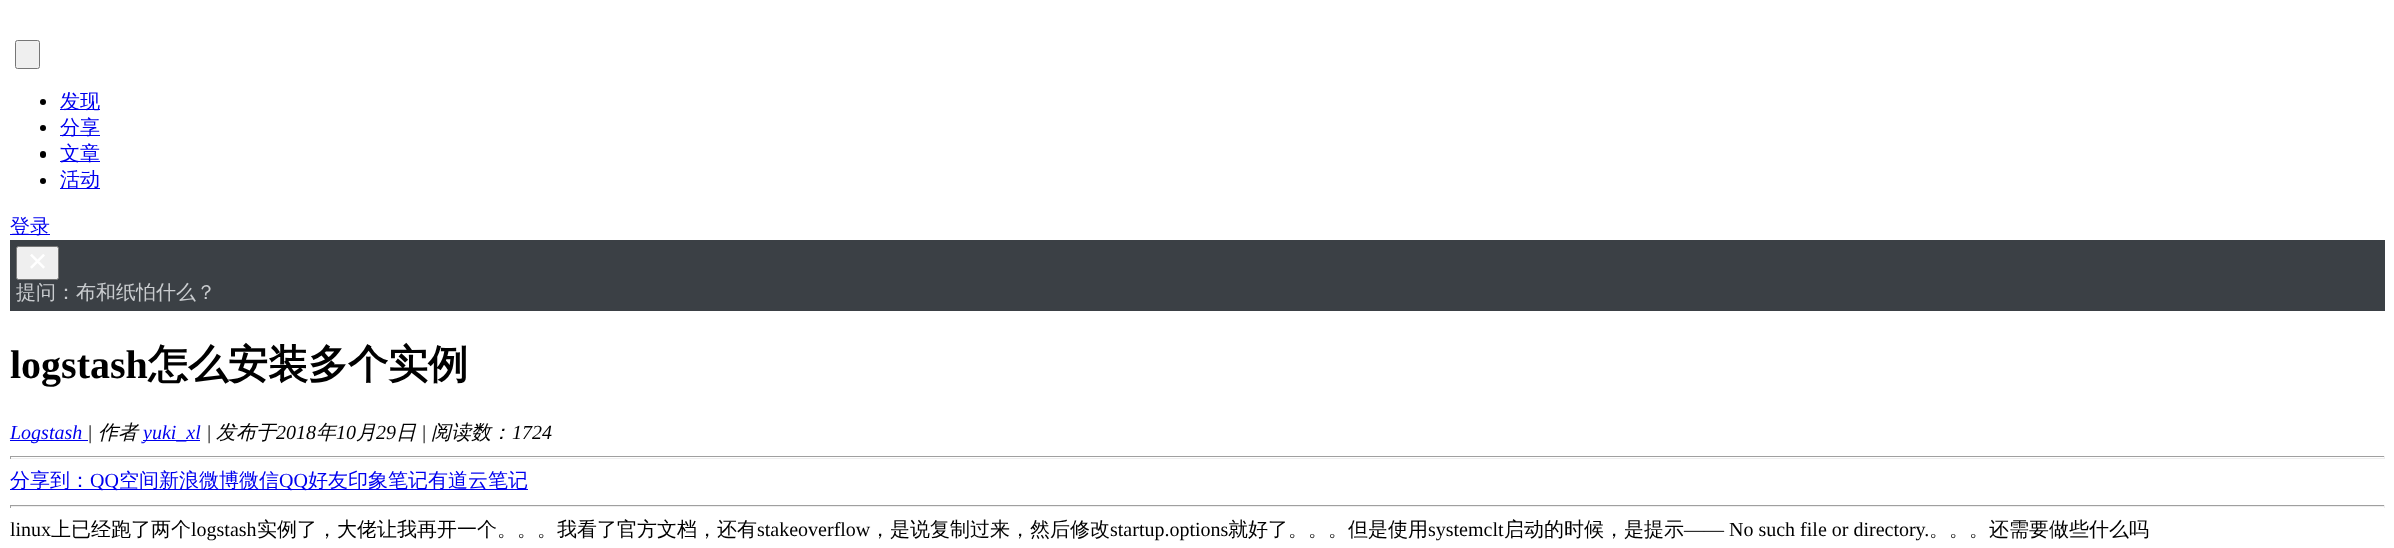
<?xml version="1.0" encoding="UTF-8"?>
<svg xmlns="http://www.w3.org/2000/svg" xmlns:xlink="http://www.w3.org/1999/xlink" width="2394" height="548">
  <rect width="100%" height="100%" fill="#ffffff" />
  <rect x="15.5" y="40.5" width="24" height="28" rx="2" fill="#efefef" stroke="#767676" />
  <circle cx="43" cy="102" r="3" fill="#000000" />
  <rect x="60" y="109" width="40" height="1" fill="#0000ee" />
  <circle cx="43" cy="128" r="3" fill="#000000" />
  <rect x="60" y="135" width="40" height="1" fill="#0000ee" />
  <rect x="40" y="151" width="6" height="7" rx="3" fill="#000000" />
  <rect x="60" y="161" width="40" height="1" fill="#0000ee" />
  <circle cx="43" cy="181" r="3" fill="#000000" />
  <rect x="60" y="188" width="40" height="1" fill="#0000ee" />
  <rect x="10" y="234" width="40" height="1" fill="#0000ee" />
  <rect x="10" y="240" width="2375" height="71" fill="#3b4045" />
  <rect x="16.5" y="246.5" width="42" height="33" rx="2" fill="#efefef" stroke="#767676" />
  <image x="30" y="254" width="15" height="15" xlink:href="image1.png" />
  <rect x="10" y="440" width="78" height="1" fill="#0000ee" />
  <rect x="143" y="440" width="57" height="1" fill="#0000ee" />
  <rect x="10" y="456" width="2375" height="1" fill="#9f9f9f" />
  <rect x="2384" y="456" width="1" height="3" fill="#eeeeee" />
  <rect x="10" y="458" width="2375" height="1" fill="#eeeeee" />
  <rect x="10" y="456" width="1" height="3" fill="#9f9f9f" />
  <rect x="10" y="489" width="518" height="1" fill="#0000ee" />
  <rect x="10" y="505" width="2375" height="1" fill="#9f9f9f" />
  <rect x="2384" y="505" width="1" height="3" fill="#eeeeee" />
  <rect x="10" y="506" width="2375" height="1" fill="#eeeeee" />
  <rect x="10" y="505" width="1" height="3" fill="#9f9f9f" />
  <text x="60" y="108" style="font-family: WenQuanYi Zen Hei; font-size: 20px; font-weight: 500; fill: #0000ee">发现</text>
  <text x="60" y="134" style="font-family: WenQuanYi Zen Hei; font-size: 20px; font-weight: 500; fill: #0000ee">分享</text>
  <text x="60" y="160" style="font-family: WenQuanYi Zen Hei; font-size: 20px; font-weight: 500; fill: #0000ee">文章</text>
  <text x="60" y="186" style="font-family: WenQuanYi Zen Hei; font-size: 20px; font-weight: 500; fill: #0000ee">活动</text>
  <text x="10" y="233" style="font-family: WenQuanYi Zen Hei; font-size: 20px; font-weight: 500; fill: #0000ee">登录</text>
  <text x="16" y="299" style="font-family: WenQuanYi Zen Hei; font-size: 20px; font-weight: 500; fill: #c9cccf">提问：布和纸怕什么？</text>
  <text x="10" y="378" style="font-family: Liberation Serif; font-size: 40px; font-weight: bold; fill: #000000">logstash</text>
  <text x="148" y="378" style="font-family: WenQuanYi Zen Hei; font-size: 40px; font-weight: bold; fill: #000000">怎么安装多个实例</text>
  <text x="10" y="439" style="font-family: Liberation Serif; font-size: 20px; font-style: italic; fill: #0000ee">Logstash</text>
  <text x="87" y="439" style="font-family: Liberation Serif; font-size: 20px; font-style: italic; fill: #000000">|</text>
  <text x="98" y="439" style="font-family: WenQuanYi Zen Hei; font-size: 20px; font-weight: 500; font-style: italic; fill: #000000">作者</text>
  <text x="143" y="439" style="font-family: Liberation Serif; font-size: 20px; font-style: italic; fill: #0000ee">yuki_xl</text>
  <text x="206" y="439" style="font-family: Liberation Serif; font-size: 20px; font-style: italic; fill: #000000">|</text>
  <text x="216" y="439" style="font-family: WenQuanYi Zen Hei; font-size: 20px; font-weight: 500; font-style: italic; fill: #000000">发布于</text>
  <text x="276" y="439" style="font-family: Liberation Serif; font-size: 20px; font-style: italic; fill: #000000">2018</text>
  <text x="316" y="439" style="font-family: WenQuanYi Zen Hei; font-size: 20px; font-weight: 500; font-style: italic; fill: #000000">年</text>
  <text x="336" y="439" style="font-family: Liberation Serif; font-size: 20px; font-style: italic; fill: #000000">10</text>
  <text x="356" y="439" style="font-family: WenQuanYi Zen Hei; font-size: 20px; font-weight: 500; font-style: italic; fill: #000000">月</text>
  <text x="376" y="439" style="font-family: Liberation Serif; font-size: 20px; font-style: italic; fill: #000000">29</text>
  <text x="396" y="439" style="font-family: WenQuanYi Zen Hei; font-size: 20px; font-weight: 500; font-style: italic; fill: #000000">日</text>
  <text x="421" y="439" style="font-family: Liberation Serif; font-size: 20px; font-style: italic; fill: #000000">|</text>
  <text x="431" y="439" style="font-family: WenQuanYi Zen Hei; font-size: 20px; font-weight: 500; font-style: italic; fill: #000000">阅读数：</text>
  <text x="512" y="439" style="font-family: Liberation Serif; font-size: 20px; font-style: italic; fill: #000000">1724</text>
  <text x="10" y="487" style="font-family: WenQuanYi Zen Hei; font-size: 20px; font-weight: 500; fill: #0000ee">分享到：</text>
  <text x="90" y="487" style="font-family: Liberation Serif; font-size: 20px; fill: #0000ee">QQ</text>
  <text x="119" y="487" style="font-family: WenQuanYi Zen Hei; font-size: 20px; font-weight: 500; fill: #0000ee">空间新浪微博微信</text>
  <text x="279" y="487" style="font-family: Liberation Serif; font-size: 20px; fill: #0000ee">QQ</text>
  <text x="308" y="487" style="font-family: WenQuanYi Zen Hei; font-size: 20px; font-weight: 500; fill: #0000ee">好友印象笔记有道云笔记</text>
  <text x="10" y="536" style="font-family: Liberation Serif; font-size: 20px; fill: #000000">linux</text>
  <text x="51" y="536" style="font-family: WenQuanYi Zen Hei; font-size: 20px; font-weight: 500; fill: #000000">上已经跑了两个</text>
  <text x="191" y="536" style="font-family: Liberation Serif; font-size: 20px; fill: #000000">logstash</text>
  <text x="257" y="536" style="font-family: WenQuanYi Zen Hei; font-size: 20px; font-weight: 500; fill: #000000">实例了，大佬让我再开一个。。。我看了官方文档，还有</text>
  <text x="757" y="536" style="font-family: Liberation Serif; font-size: 20px; fill: #000000">stakeoverflow</text>
  <text x="870" y="536" style="font-family: WenQuanYi Zen Hei; font-size: 20px; font-weight: 500; fill: #000000">，是说复制过来，然后修改</text>
  <text x="1110" y="536" style="font-family: Liberation Serif; font-size: 20px; fill: #000000">startup.options</text>
  <text x="1228" y="536" style="font-family: WenQuanYi Zen Hei; font-size: 20px; font-weight: 500; fill: #000000">就好了。。。但是使用</text>
  <text x="1428" y="536" style="font-family: Liberation Serif; font-size: 20px; fill: #000000">systemclt</text>
  <text x="1504" y="536" style="font-family: WenQuanYi Zen Hei; font-size: 20px; font-weight: 500; fill: #000000">启动的时候，是提示</text>
  <text x="1684" y="536" style="font-family: Liberation Serif; font-size: 20px; fill: #000000">—— No such file or directory.</text>
  <text x="1929" y="536" style="font-family: WenQuanYi Zen Hei; font-size: 20px; font-weight: 500; fill: #000000">。。。还需要做些什么吗</text>
</svg>
